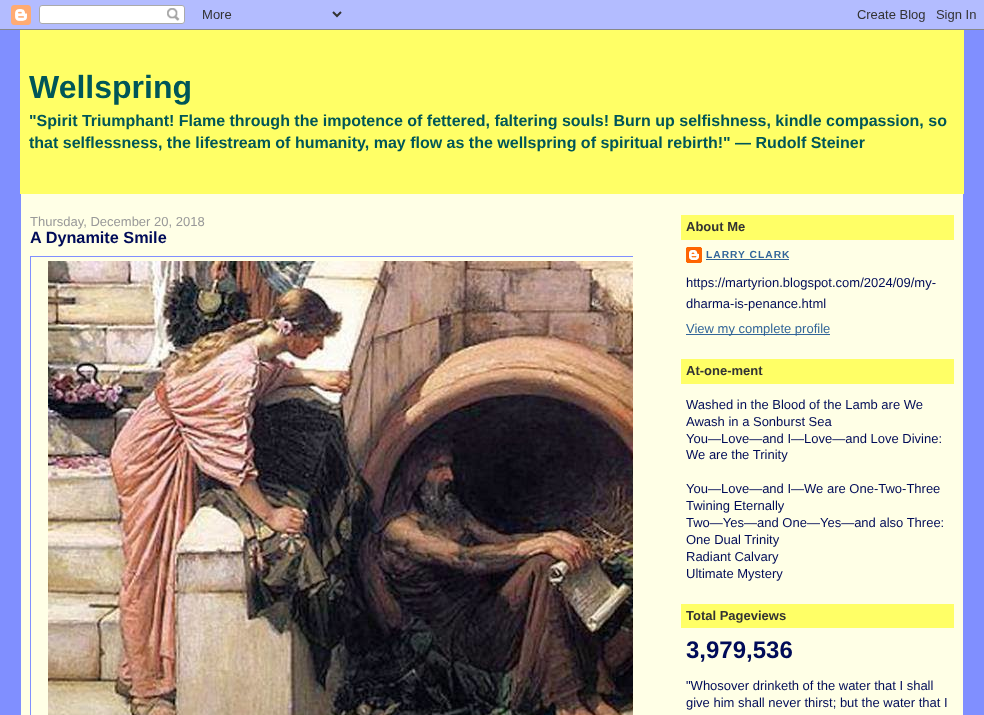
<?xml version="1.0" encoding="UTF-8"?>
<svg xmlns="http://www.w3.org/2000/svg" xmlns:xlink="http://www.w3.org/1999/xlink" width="984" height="715">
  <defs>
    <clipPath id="clip1"><rect x="30" y="194" width="603" height="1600" /></clipPath>
  </defs>
  <rect width="100%" height="100%" fill="#808fff" />
  <image x="0" y="0" width="984" height="30" xlink:href="image1.png" />
  <rect x="20" y="30" width="944" height="164" fill="#ffff66" />
  <rect x="21" y="194" width="942" height="521" fill="#ffffe6" />
  <g clip-path="url(#clip1)">
    <rect x="30.5" y="256.5" width="663" height="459" fill="none" stroke="#808fff" />
  </g>
  <image x="48" y="261" width="585" height="454" xlink:href="image2.png" />
  <rect x="681" y="215" width="273" height="25" fill="#ffff66" />
  <image x="686" y="247" width="16" height="16" xlink:href="image3.png" />
  <rect x="706" y="259" width="83" height="1" fill="#336699" />
  <rect x="686" y="334" width="144" height="1" fill="#336699" />
  <rect x="681" y="359" width="273" height="25" fill="#ffff66" />
  <rect x="681" y="604" width="273" height="24" fill="#ffff66" />
  <text x="29" y="98" style="font-family: Liberation Sans; font-size: 32px; font-weight: bold; fill: #005658">Wellspring</text>
  <text x="29" y="126" style="font-family: Liberation Sans; font-size: 16px; font-weight: bold; fill: #005658">"Spirit Triumphant! Flame through the impotence of fettered, faltering souls! Burn up selfishness, kindle compassion, so</text>
  <text x="29" y="148" style="font-family: Liberation Sans; font-size: 16px; font-weight: bold; fill: #005658">that selflessness, the lifestream of humanity, may flow as the wellspring of spiritual rebirth!" — Rudolf Steiner</text>
  <text x="30" y="226" style="font-family: Liberation Sans; font-size: 13px; fill: #999999">Thursday, December 20, 2018</text>
  <text x="30" y="243" style="font-family: Liberation Sans; font-size: 16.25px; font-weight: bold; fill: #000b58">A Dynamite Smile</text>
  <text x="686" y="231" style="font-family: Liberation Sans; font-size: 13px; font-weight: bold; fill: #333333">About Me</text>
  <text x="706" y="258" style="font-family: Liberation Sans; font-size: 10.25px; font-weight: bold; letter-spacing: 1px; fill: #336699">LARRY CLARK</text>
  <text x="686" y="287" style="font-family: Liberation Sans; font-size: 13px; fill: #000b58">https://martyrion.blogspot.com/2024/09/my-</text>
  <text x="686" y="308" style="font-family: Liberation Sans; font-size: 13px; fill: #000b58">dharma-is-penance.html</text>
  <text x="686" y="333" style="font-family: Liberation Sans; font-size: 13px; fill: #336699">View my complete profile</text>
  <text x="686" y="375" style="font-family: Liberation Sans; font-size: 13px; font-weight: bold; fill: #333333">At-one-ment</text>
  <text x="686" y="409" style="font-family: Liberation Sans; font-size: 13px; fill: #000b58">Washed in the Blood of the Lamb are We</text>
  <text x="686" y="426" style="font-family: Liberation Sans; font-size: 13px; fill: #000b58">Awash in a Sonburst Sea</text>
  <text x="686" y="443" style="font-family: Liberation Sans; font-size: 13px; fill: #000b58">You—Love—and I—Love—and Love Divine:</text>
  <text x="686" y="459" style="font-family: Liberation Sans; font-size: 13px; fill: #000b58">We are the Trinity</text>
  <text x="686" y="493" style="font-family: Liberation Sans; font-size: 13px; fill: #000b58">You—Love—and I—We are One-Two-Three</text>
  <text x="686" y="510" style="font-family: Liberation Sans; font-size: 13px; fill: #000b58">Twining Eternally</text>
  <text x="686" y="527" style="font-family: Liberation Sans; font-size: 13px; fill: #000b58">Two—Yes—and One—Yes—and also Three:</text>
  <text x="686" y="544" style="font-family: Liberation Sans; font-size: 13px; fill: #000b58">One Dual Trinity</text>
  <text x="686" y="561" style="font-family: Liberation Sans; font-size: 13px; fill: #000b58">Radiant Calvary</text>
  <text x="686" y="578" style="font-family: Liberation Sans; font-size: 13px; fill: #000b58">Ultimate Mystery</text>
  <text x="686" y="620" style="font-family: Liberation Sans; font-size: 13px; font-weight: bold; fill: #333333">Total Pageviews</text>
  <text x="686" y="658" style="font-family: Liberation Sans; font-size: 24px; font-weight: bold; fill: #000b58">3,979,536</text>
  <text x="686" y="690" style="font-family: Liberation Sans; font-size: 13px; fill: #000b58">"Whosover drinketh of the water that I shall</text>
  <text x="686" y="707" style="font-family: Liberation Sans; font-size: 13px; fill: #000b58">give him shall never thirst; but the water that I</text>
</svg>
